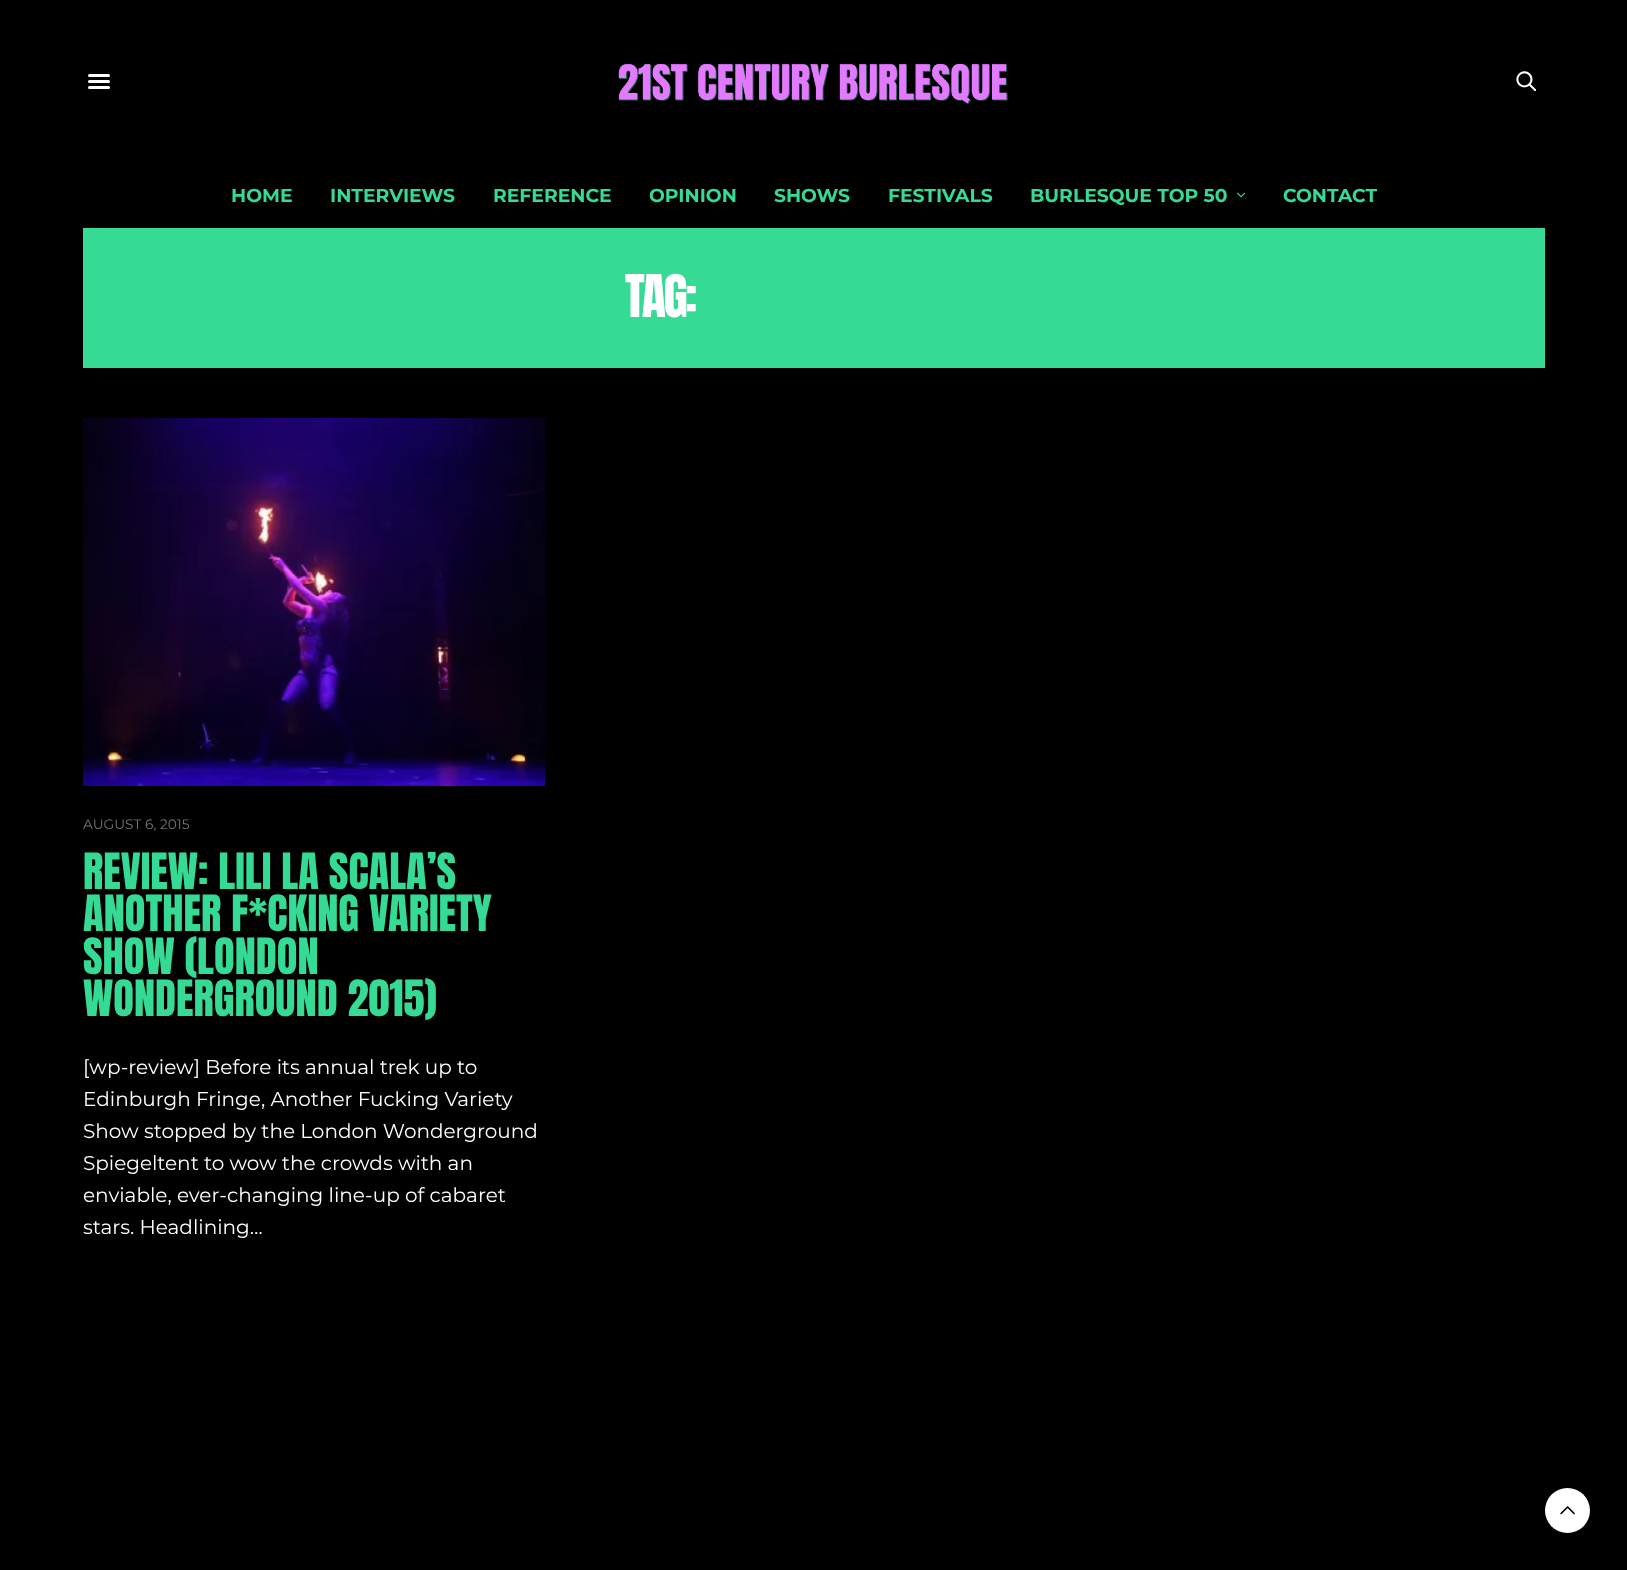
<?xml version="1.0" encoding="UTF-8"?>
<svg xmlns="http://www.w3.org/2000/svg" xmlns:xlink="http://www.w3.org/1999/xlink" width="1627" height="1570">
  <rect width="100%" height="100%" fill="#000000" />
  <rect x="88" y="74" width="22" height="3" rx="1.5" fill="#ffffff" />
  <rect x="88" y="80" width="22" height="3" rx="1.5" fill="#ffffff" />
  <rect x="88" y="86" width="22" height="3" rx="1.5" fill="#ffffff" />
  <image x="618" y="63" width="390" height="42" xlink:href="image1.png" />
  <image x="1516" y="71" width="20" height="20" xlink:href="image2.png" />
  <image x="1236" y="192" width="10" height="6" xlink:href="image3.png" />
  <rect x="83" y="228" width="1462" height="140" fill="#35db94" />
  <image x="83" y="418" width="462" height="368" xlink:href="image4.png" />
  <circle cx="1567.5" cy="1510.5" r="22.5" fill="#ffffff" />
  <image x="1560" y="1506" width="15" height="9" xlink:href="image5.png" />
  <text x="231" y="202" style="font-family: Montserrat; font-size: 18.75px; font-weight: bold; fill: #35db94">HOME</text>
  <text x="330" y="202" style="font-family: Montserrat; font-size: 18.75px; font-weight: bold; fill: #35db94">INTERVIEWS</text>
  <text x="493" y="202" style="font-family: Montserrat; font-size: 18.75px; font-weight: bold; fill: #35db94">REFERENCE</text>
  <text x="649" y="202" style="font-family: Montserrat; font-size: 18.75px; font-weight: bold; fill: #35db94">OPINION</text>
  <text x="774" y="202" style="font-family: Montserrat; font-size: 18.75px; font-weight: bold; fill: #35db94">SHOWS</text>
  <text x="888" y="202" style="font-family: Montserrat; font-size: 18.75px; font-weight: bold; fill: #35db94">FESTIVALS</text>
  <text x="1030" y="202" style="font-family: Montserrat; font-size: 18.75px; font-weight: bold; fill: #35db94">BURLESQUE TOP 50</text>
  <text x="1283" y="202" style="font-family: Montserrat; font-size: 18.75px; font-weight: bold; fill: #35db94">CONTACT</text>
  <text x="625" y="317" style="font-family: Anton; font-size: 50px; letter-spacing: -2.5px; fill: #ffffff">TAG:</text>
  <text x="83" y="829" style="font-family: Montserrat; font-size: 13.75px; fill: #767676">AUGUST 6, 2015</text>
  <text x="83" y="889" style="font-family: Anton; font-size: 42.5px; fill: #35db94">REVIEW: LILI LA SCALA’S</text>
  <text x="83" y="931" style="font-family: Anton; font-size: 42.5px; fill: #35db94">ANOTHER F*CKING VARIETY</text>
  <text x="83" y="974" style="font-family: Anton; font-size: 42.5px; fill: #35db94">SHOW (LONDON</text>
  <text x="83" y="1016" style="font-family: Anton; font-size: 42.5px; fill: #35db94">WONDERGROUND 2015)</text>
  <text x="83" y="1074" style="font-family: Montserrat; font-size: 20px; fill: #ffffff">[wp-review] Before its annual trek up to</text>
  <text x="83" y="1106" style="font-family: Montserrat; font-size: 20px; fill: #ffffff">Edinburgh Fringe, Another Fucking Variety</text>
  <text x="83" y="1138" style="font-family: Montserrat; font-size: 20px; fill: #ffffff">Show stopped by the London Wonderground</text>
  <text x="83" y="1170" style="font-family: Montserrat; font-size: 20px; fill: #ffffff">Spiegeltent to wow the crowds with an</text>
  <text x="83" y="1202" style="font-family: Montserrat; font-size: 20px; fill: #ffffff">enviable, ever-changing line-up of cabaret</text>
  <text x="83" y="1234" style="font-family: Montserrat; font-size: 20px; fill: #ffffff">stars. Headlining…</text>
</svg>
